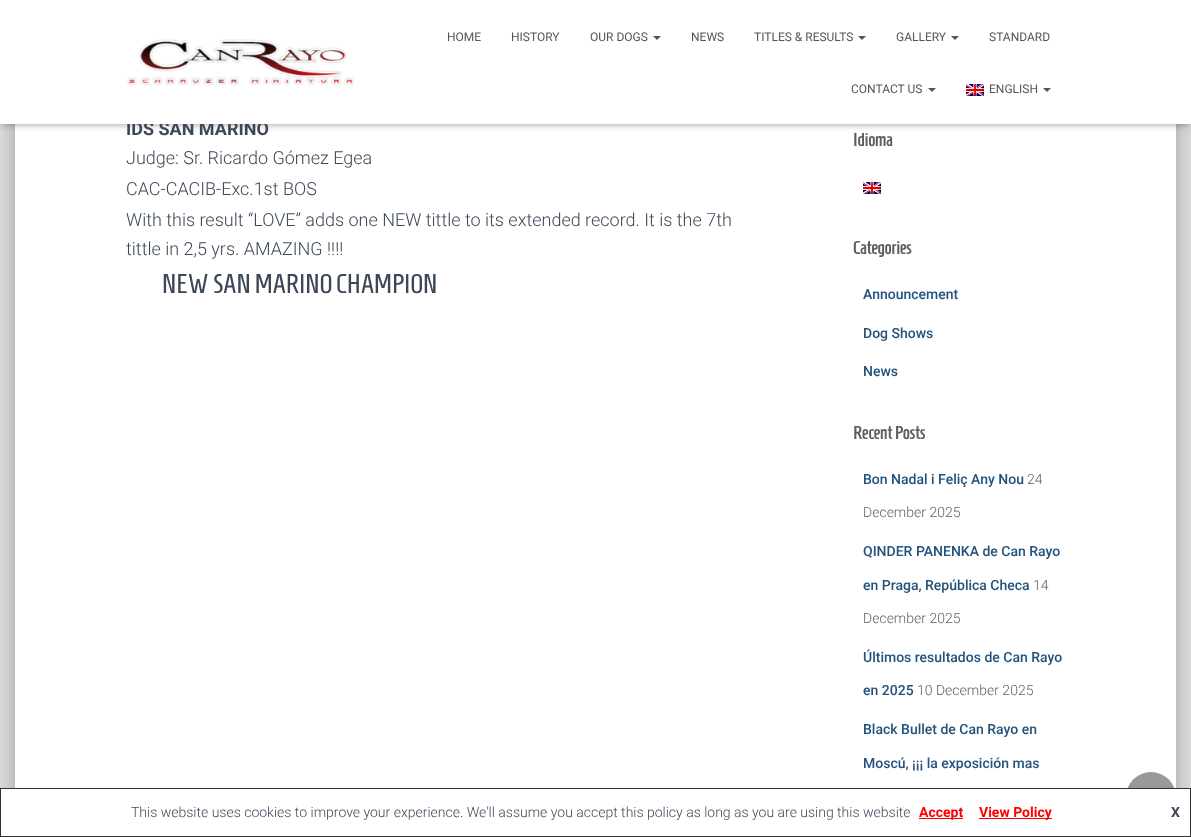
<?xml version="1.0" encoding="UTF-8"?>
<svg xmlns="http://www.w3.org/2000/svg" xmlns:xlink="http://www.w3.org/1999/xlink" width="1191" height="837">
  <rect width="100%" height="100%" fill="#e5e5e5" />
  <rect x="20" y="-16" width="1151" height="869" rx="1" fill="#000000" fill-opacity="0.2" filter="blur(5px)" />
  <rect x="10" y="-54" width="1171" height="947" rx="11" fill="#000000" fill-opacity="0.12" filter="blur(15px)" />
  <rect x="13" y="-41" width="1165" height="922" rx="8" fill="#000000" fill-opacity="0.14" filter="blur(12px)" />
  <rect x="15" y="124" width="1161" height="664" fill="#ffffff" />
  <rect x="2" y="6" width="1187" height="120" fill="#000000" fill-opacity="0.1" filter="blur(2.5px)" />
  <rect y="1" width="1191" height="124" fill="#000000" fill-opacity="0.12" filter="blur(5px)" />
  <rect x="6" y="7" width="1179" height="112" fill="#000000" fill-opacity="0.42" filter="blur(5px)" />
  <image x="863" y="182" width="18" height="12" xlink:href="image2.png" />
  <circle cx="1151" cy="797" r="25" fill="#999999" />
  <rect x="0.5" y="788.5" width="1190" height="48" fill="#ffffff" stroke="#333333" />
  <rect x="919" y="818" width="44" height="1" fill="#ff0000" />
  <rect x="979" y="818" width="73" height="1" fill="#ff0000" />
  <text x="126" y="135" style="font-family: Roboto; font-size: 18px; font-weight: bold; fill: #3c4858">IDS SAN MARINO</text>
  <rect width="1191" height="124" fill="#ffffff" />
  <path d="M 1043 88 h 8 l -4 4 z" fill="#555555" />
  <text x="989" y="93" style="font-family: Roboto; font-size: 12px; fill: #555555">ENGLISH</text>
  <image x="966" y="84" width="18" height="12" xlink:href="image2.png" />
  <path d="M 928 88 h 8 l -4 4 z" fill="#555555" />
  <text x="851" y="93" style="font-family: Roboto; font-size: 12px; fill: #555555">CONTACT US</text>
  <text x="989" y="41" style="font-family: Roboto; font-size: 12px; fill: #555555">STANDARD</text>
  <path d="M 951 36 h 8 l -4 4 z" fill="#555555" />
  <text x="896" y="41" style="font-family: Roboto; font-size: 12px; fill: #555555">GALLERY</text>
  <path d="M 858 36 h 8 l -4 4 z" fill="#555555" />
  <text x="754" y="41" style="font-family: Roboto; font-size: 12px; fill: #555555">TITLES &amp; RESULTS</text>
  <text x="691" y="41" style="font-family: Roboto; font-size: 12px; fill: #555555">NEWS</text>
  <path d="M 653 36 h 8 l -4 4 z" fill="#555555" />
  <text x="590" y="41" style="font-family: Roboto; font-size: 12px; fill: #555555">OUR DOGS</text>
  <text x="511" y="41" style="font-family: Roboto; font-size: 12px; fill: #555555">HISTORY</text>
  <text x="447" y="41" style="font-family: Roboto; font-size: 12px; fill: #555555">HOME</text>
  <image x="127" y="39" width="227" height="47" xlink:href="image1.png" />
  <text x="126" y="164" style="font-family: Roboto; font-size: 18px; font-weight: 300; fill: #3c4858">Judge: Sr. Ricardo Gómez Egea</text>
  <text x="126" y="195" style="font-family: Roboto; font-size: 18px; font-weight: 300; fill: #3c4858">CAC-CACIB-Exc.1st BOS</text>
  <text x="126" y="226" style="font-family: Roboto; font-size: 18px; font-weight: 300; fill: #3c4858">With this result “LOVE” adds one NEW tittle to its extended record. It is the 7th</text>
  <text x="126" y="255" style="font-family: Roboto; font-size: 18px; font-weight: 300; fill: #3c4858">tittle in 2,5 yrs. AMAZING !!!!</text>
  <text x="162" y="293" style="font-family: Homenaje; font-size: 27px; fill: #3c4858">NEW SAN MARINO CHAMPION</text>
  <text x="853" y="146" style="font-family: Homenaje; font-size: 18px; font-weight: bold; fill: #5e5e5e">Idioma</text>
  <text x="853" y="254" style="font-family: Homenaje; font-size: 18px; font-weight: bold; fill: #5e5e5e">Categories</text>
  <text x="863" y="299" style="font-family: Roboto; font-size: 14px; font-weight: 500; fill: #23527c">Announcement</text>
  <text x="863" y="338" style="font-family: Roboto; font-size: 14px; font-weight: 500; fill: #23527c">Dog Shows</text>
  <text x="863" y="376" style="font-family: Roboto; font-size: 14px; font-weight: 500; fill: #23527c">News</text>
  <text x="853" y="439" style="font-family: Homenaje; font-size: 18px; font-weight: bold; fill: #5e5e5e">Recent Posts</text>
  <text x="863" y="484" style="font-family: Roboto; font-size: 14px; font-weight: 500; fill: #23527c">Bon Nadal i Feliç Any Nou</text>
  <text x="1027" y="484" style="font-family: Roboto; font-size: 14px; font-weight: 300; fill: #5e5e5e">24</text>
  <text x="863" y="517" style="font-family: Roboto; font-size: 14px; font-weight: 300; fill: #5e5e5e">December 2025</text>
  <text x="863" y="556" style="font-family: Roboto; font-size: 14px; font-weight: 500; fill: #23527c">QINDER PANENKA de Can Rayo</text>
  <text x="863" y="590" style="font-family: Roboto; font-size: 14px; font-weight: 500; fill: #23527c">en Praga, República Checa</text>
  <text x="1033" y="590" style="font-family: Roboto; font-size: 14px; font-weight: 300; fill: #5e5e5e">14</text>
  <text x="863" y="623" style="font-family: Roboto; font-size: 14px; font-weight: 300; fill: #5e5e5e">December 2025</text>
  <text x="863" y="662" style="font-family: Roboto; font-size: 14px; font-weight: 500; fill: #23527c">Últimos resultados de Can Rayo</text>
  <text x="863" y="695" style="font-family: Roboto; font-size: 14px; font-weight: 500; fill: #23527c">en 2025</text>
  <text x="917" y="695" style="font-family: Roboto; font-size: 14px; font-weight: 300; fill: #5e5e5e">10 December 2025</text>
  <text x="863" y="734" style="font-family: Roboto; font-size: 14px; font-weight: 500; fill: #23527c">Black Bullet de Can Rayo en</text>
  <text x="863" y="768" style="font-family: Roboto; font-size: 14px; font-weight: 500; fill: #23527c">Moscú, ¡¡¡ la exposición mas</text>
  <text x="131" y="817" style="font-family: Roboto; font-size: 14px; font-weight: 300; fill: #3c4858">This website uses cookies to improve your experience. We'll assume you accept this policy as long as you are using this website</text>
  <text x="919" y="817" style="font-family: Roboto; font-size: 14px; font-weight: bold; fill: #ff0000">Accept</text>
  <text x="979" y="817" style="font-family: Roboto; font-size: 14px; font-weight: bold; fill: #ff0000">View Policy</text>
  <text x="1171" y="817" style="font-family: Roboto; font-size: 14px; font-weight: bold; fill: #3c4858">X</text>
</svg>
